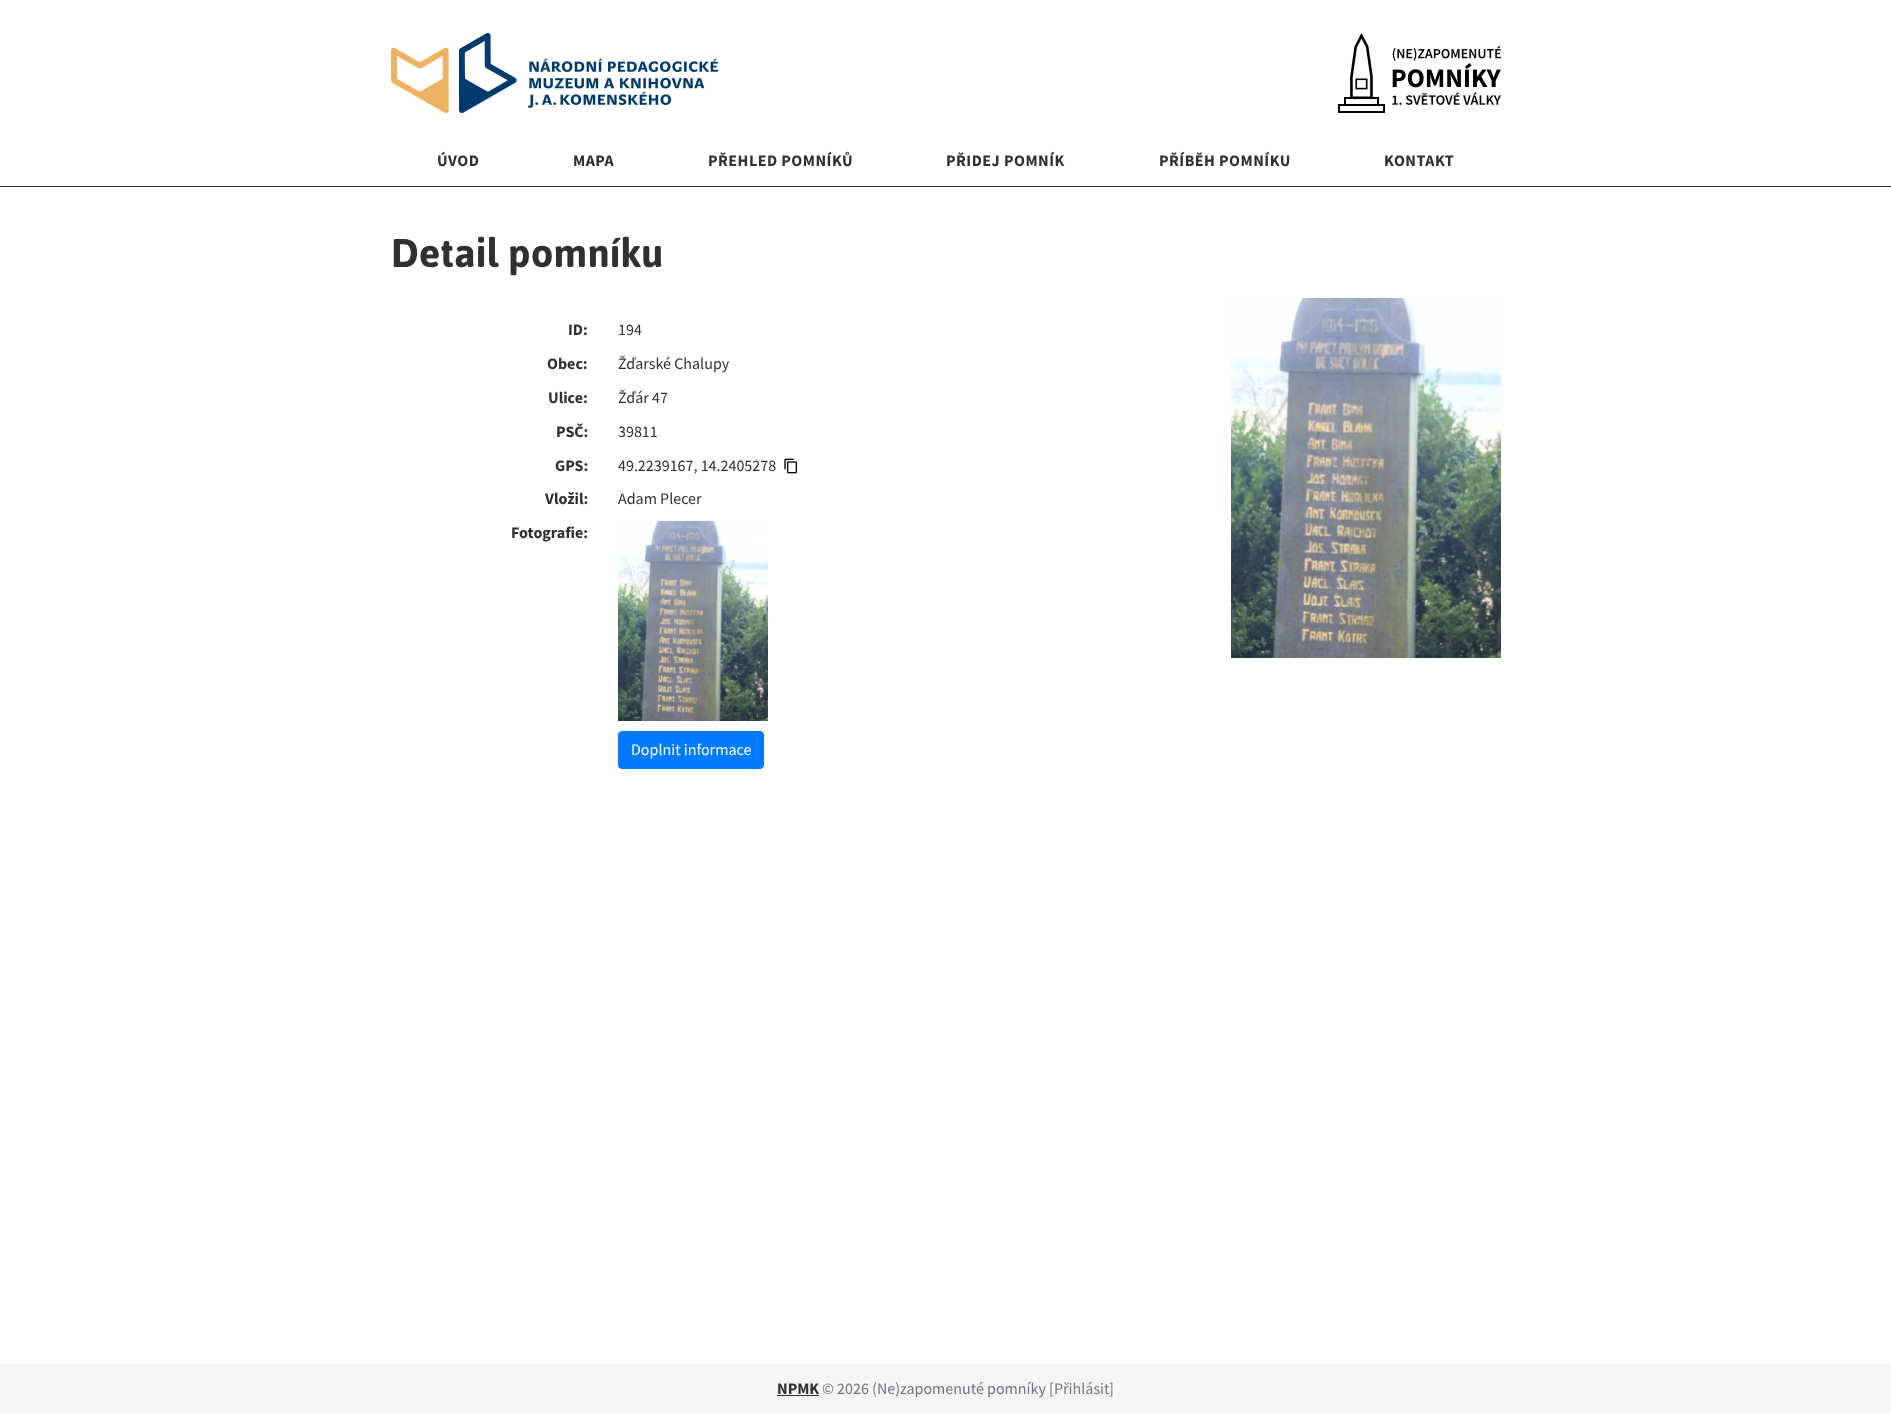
<?xml version="1.0" encoding="UTF-8"?>
<svg xmlns="http://www.w3.org/2000/svg" xmlns:xlink="http://www.w3.org/1999/xlink" width="1891" height="1414">
  <rect width="100%" height="100%" fill="#ffffff" />
  <image x="391" y="33" width="327" height="80" xlink:href="image1.png" />
  <image x="1338" y="33" width="163" height="80" xlink:href="image2.png" />
  <rect y="186" width="1891" height="1" fill="#303030" />
  <image x="784" y="458" width="13" height="16" xlink:href="image3.png" />
  <image x="618" y="521" width="150" height="200" xlink:href="image4.png" />
  <rect x="618.5" y="731.5" width="145" height="37" rx="3.5" fill="#007bff" stroke="#007bff" />
  <image x="1231" y="298" width="270" height="360" xlink:href="image5.png" />
  <rect y="1364" width="1891" height="50" fill="#f5f5f5" />
  <rect x="777" y="1395" width="42" height="1" fill="#303030" />
  <text x="437" y="166" style="font-family: Source Sans Pro; font-size: 16px; font-weight: bold; letter-spacing: 0.5px; fill: #303030">ÚVOD</text>
  <text x="573" y="166" style="font-family: Source Sans Pro; font-size: 16px; font-weight: bold; letter-spacing: 0.5px; fill: #303030">MAPA</text>
  <text x="708" y="166" style="font-family: Source Sans Pro; font-size: 16px; font-weight: bold; letter-spacing: 0.5px; fill: #303030">PŘEHLED POMNÍKŮ</text>
  <text x="946" y="166" style="font-family: Source Sans Pro; font-size: 16px; font-weight: bold; letter-spacing: 0.5px; fill: #303030">PŘIDEJ POMNÍK</text>
  <text x="1159" y="166" style="font-family: Source Sans Pro; font-size: 16px; font-weight: bold; letter-spacing: 0.5px; fill: #303030">PŘÍBĚH POMNÍKU</text>
  <text x="1384" y="166" style="font-family: Source Sans Pro; font-size: 16px; font-weight: bold; letter-spacing: 0.5px; fill: #303030">KONTAKT</text>
  <text x="391" y="267" style="font-family: Asap; font-size: 40px; font-weight: bold; fill: #303030">Detail pomníku</text>
  <text x="568" y="335" style="font-family: Source Sans Pro; font-size: 16px; font-weight: bold; fill: #303030">ID:</text>
  <text x="618" y="335" style="font-family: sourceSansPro; font-size: 16px; fill: #303030">194</text>
  <text x="547" y="369" style="font-family: Source Sans Pro; font-size: 16px; font-weight: bold; fill: #303030">Obec:</text>
  <text x="618" y="369" style="font-family: sourceSansPro; font-size: 16px; fill: #303030">Žďarské Chalupy</text>
  <text x="548" y="403" style="font-family: Source Sans Pro; font-size: 16px; font-weight: bold; fill: #303030">Ulice:</text>
  <text x="618" y="403" style="font-family: sourceSansPro; font-size: 16px; fill: #303030">Žďár 47</text>
  <text x="556" y="437" style="font-family: Source Sans Pro; font-size: 16px; font-weight: bold; fill: #303030">PSČ:</text>
  <text x="618" y="437" style="font-family: sourceSansPro; font-size: 16px; fill: #303030">39811</text>
  <text x="555" y="471" style="font-family: Source Sans Pro; font-size: 16px; font-weight: bold; fill: #303030">GPS:</text>
  <text x="618" y="471" style="font-family: sourceSansPro; font-size: 16px; fill: #303030">49.2239167, 14.2405278</text>
  <text x="545" y="504" style="font-family: Source Sans Pro; font-size: 16px; font-weight: bold; fill: #303030">Vložil:</text>
  <text x="618" y="504" style="font-family: sourceSansPro; font-size: 16px; fill: #303030">Adam Plecer</text>
  <text x="511" y="538" style="font-family: Source Sans Pro; font-size: 16px; font-weight: bold; fill: #303030">Fotografie:</text>
  <text x="631" y="755" style="font-family: sourceSansPro; font-size: 16px; fill: #ffffff">Doplnit informace</text>
  <text x="777" y="1394" style="font-family: Source Sans Pro; font-size: 16px; font-weight: bold; fill: #303030">NPMK</text>
  <text x="822" y="1394" style="font-family: sourceSansPro; font-size: 16px; fill: #6c757d">© 2026 (Ne)zapomenuté pomníky [</text>
  <text x="1054" y="1394" style="font-family: sourceSansPro; font-size: 16px; fill: #777777">Přihlásit</text>
  <text x="1109" y="1394" style="font-family: sourceSansPro; font-size: 16px; fill: #6c757d">]</text>
</svg>
